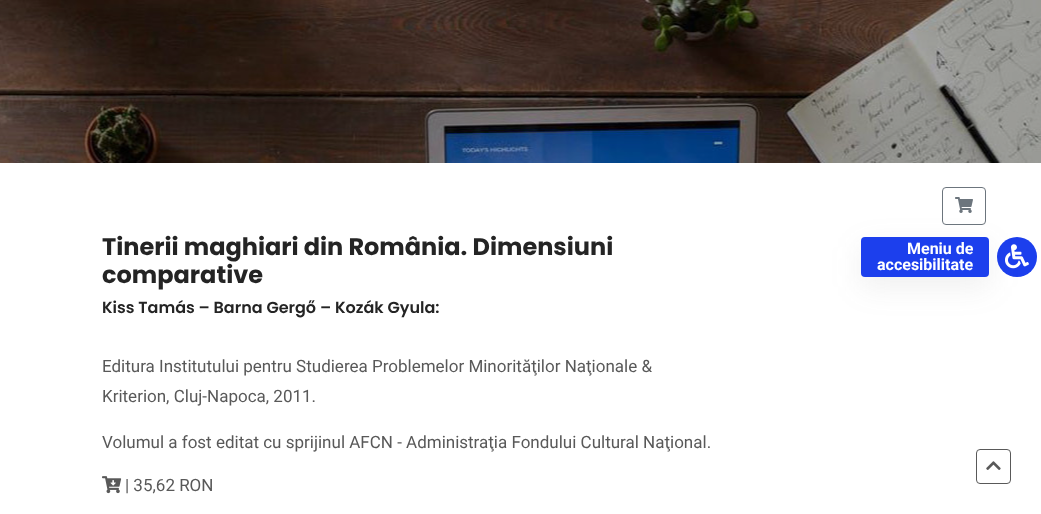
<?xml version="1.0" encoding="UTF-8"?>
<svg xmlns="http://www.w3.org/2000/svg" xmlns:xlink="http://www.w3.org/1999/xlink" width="1041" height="514">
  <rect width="100%" height="100%" fill="#ffffff" />
  <image x="0" y="0" width="1041" height="163" xlink:href="image1.png" />
  <rect x="942.5" y="187.5" width="43" height="37" rx="3.5" fill="none" stroke="#6c757d" />
  <image x="955" y="197" width="18" height="16" xlink:href="image2.png" />
  <image x="102" y="476" width="20" height="18" xlink:href="image3.png" />
  <circle cx="1017" cy="257" r="20" fill="#1c3fed" />
  <image x="1005" y="244" width="24" height="25" xlink:href="image4.png" />
  <rect x="861" y="247" width="128" height="40" rx="4" fill="#666666" fill-opacity="0.1" filter="blur(15px)" />
  <rect x="861" y="237" width="128" height="40" rx="4" fill="#1c3fed" />
  <rect x="976.5" y="449.5" width="34" height="34" rx="3.5" fill="none" stroke="#595959" />
  <image x="986" y="461" width="15" height="9" xlink:href="image5.png" />
  <text x="102" y="255" style="font-family: Poppins; font-size: 24px; font-weight: bold; fill: #242424">Tinerii maghiari din România. Dimensiuni</text>
  <text x="102" y="283" style="font-family: Poppins; font-size: 24px; font-weight: bold; fill: #242424">comparative</text>
  <text x="102" y="313" style="font-family: Poppins; font-size: 16px; font-weight: 600; fill: #242424">Kiss Tamás – Barna Gergő – Kozák Gyula:</text>
  <text x="102" y="372" style="font-family: Roboto; font-size: 17px; fill: #595959">Editura Institutului pentru Studierea Problemelor Minorităţilor Naţionale &amp;</text>
  <text x="102" y="402" style="font-family: Roboto; font-size: 17px; fill: #595959">Kriterion, Cluj-Napoca, 2011.</text>
  <text x="102" y="448" style="font-family: Roboto; font-size: 17px; fill: #595959">Volumul a fost editat cu sprijinul AFCN - Administraţia Fondului Cultural Naţional.</text>
  <text x="125" y="491" style="font-family: Roboto; font-size: 17px; fill: #595959">| 35,62 RON</text>
  <text x="907" y="254" style="font-family: Roboto; font-size: 16px; font-weight: bold; fill: #ffffff">Meniu de</text>
  <text x="877" y="270" style="font-family: Roboto; font-size: 16px; font-weight: bold; fill: #ffffff">accesibilitate</text>
</svg>
